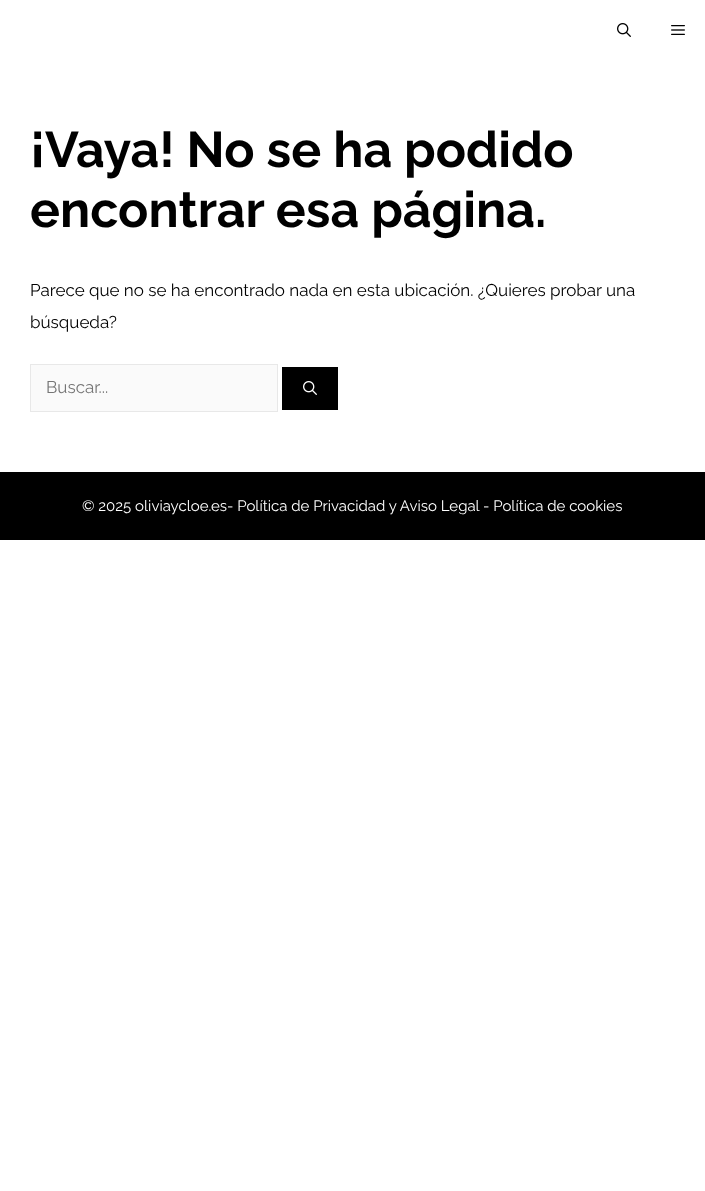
<?xml version="1.0" encoding="UTF-8"?>
<svg xmlns="http://www.w3.org/2000/svg" xmlns:xlink="http://www.w3.org/1999/xlink" width="705" height="1191">
  <rect width="100%" height="100%" fill="#ffffff" />
  <image x="617" y="23" width="14" height="14" xlink:href="image1.png" />
  <image x="671" y="25" width="14" height="10" xlink:href="image2.png" />
  <rect x="30.5" y="364.5" width="247" height="47" fill="#fafafa" stroke="#e8e8e8" />
  <rect x="282" y="367" width="56" height="43" fill="#000000" />
  <image x="303" y="381" width="14" height="14" xlink:href="image3.png" />
  <rect y="472" width="705" height="68" fill="#000000" />
  <text x="30" y="167" style="font-family: Raleway; font-size: 50px; font-weight: bold; fill: #000000">¡Vaya! No se ha podido</text>
  <text x="30" y="227" style="font-family: Raleway; font-size: 50px; font-weight: bold; fill: #000000">encontrar esa página.</text>
  <text x="30" y="296" style="font-family: Raleway; font-size: 17px; fill: #000000">Parece que no se ha encontrado nada en esta ubicación. ¿Quieres probar una</text>
  <text x="30" y="328" style="font-family: Raleway; font-size: 17px; fill: #000000">búsqueda?</text>
  <text x="46" y="393" style="font-family: Raleway; font-size: 17px; fill: #757575">Buscar...</text>
  <text x="82" y="511" style="font-family: Raleway; font-size: 15px; fill: #ffffff">© 2025 oliviaycloe.es- Política de Privacidad y Aviso Legal - Política de cookies</text>
</svg>
